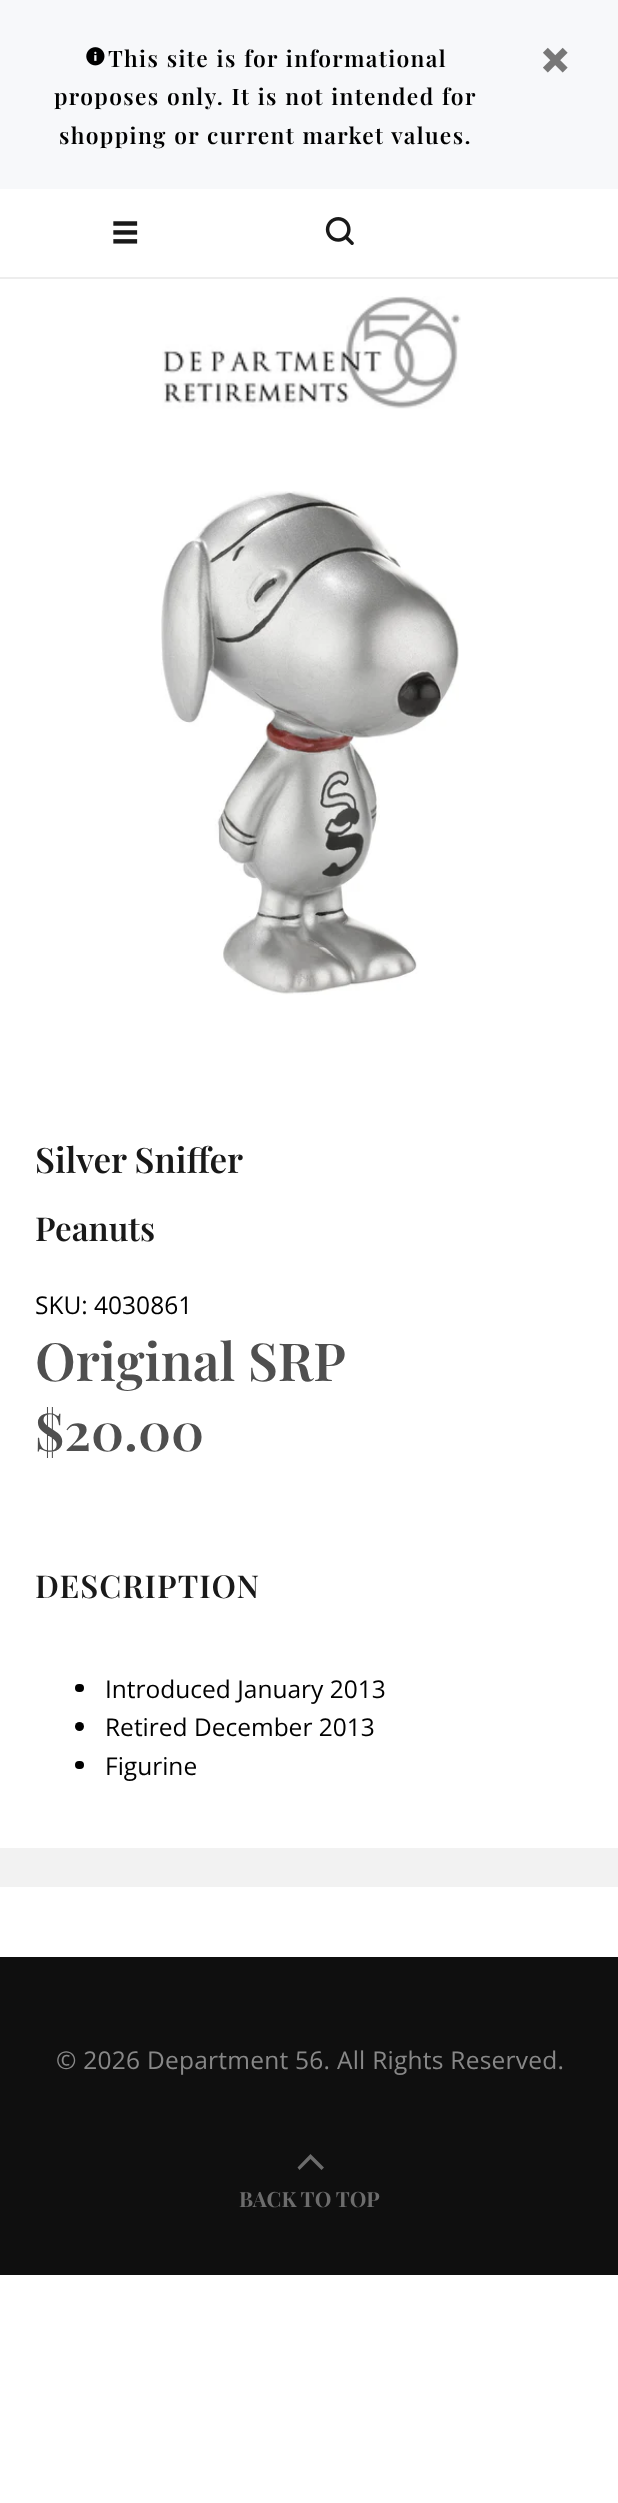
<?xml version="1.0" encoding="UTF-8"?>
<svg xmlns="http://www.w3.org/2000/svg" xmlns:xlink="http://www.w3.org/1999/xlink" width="618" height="2503">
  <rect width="100%" height="100%" fill="#ffffff" />
  <rect width="618" height="189" fill="#f7f8fa" />
  <image x="86" y="47" width="19" height="19" xlink:href="image1.png" />
  <image x="543" y="47" width="25" height="26" xlink:href="image2.png" />
  <image x="113" y="221" width="25" height="23" xlink:href="image3.png" />
  <image x="325" y="217" width="29" height="28" xlink:href="image4.png" />
  <rect y="277" width="618" height="2" fill="#ededed" />
  <image x="162" y="296" width="299" height="113" xlink:href="image5.png" />
  <image x="161" y="491" width="298" height="504" xlink:href="image6.png" />
  <rect x="75" y="1684" width="9" height="8" rx="4" fill="#000000" />
  <circle cx="79.5" cy="1726.5" r="4.5" fill="#000000" />
  <rect x="75" y="1761" width="9" height="8" rx="4" fill="#000000" />
  <rect y="1848" width="618" height="39" fill="#f2f2f2" />
  <rect y="1957" width="618" height="318" fill="#0f0f0f" />
  <path d="M 321.5 2170 l -11 -11 l -11 11 l -2 -2.5 l 13 -13.5 l 13.5 13.5 z" fill="#6c6c6c" />
  <text x="108" y="67" word-spacing="0.75" style="font-family: Playfair Display; font-size: 22.75px; font-weight: 600; letter-spacing: 1.35px; fill: #000000">This site is for informational</text>
  <text x="54" y="105" word-spacing="0.75" style="font-family: Playfair Display; font-size: 22.75px; font-weight: 600; letter-spacing: 1.35px; fill: #000000">proposes only. It is not intended for</text>
  <text x="59" y="144" word-spacing="0.75" style="font-family: Playfair Display; font-size: 22.75px; font-weight: 600; letter-spacing: 1.35px; fill: #000000">shopping or current market values.</text>
  <text x="35" y="1173" style="font-family: Playfair Display; font-size: 35px; font-weight: 600; fill: #191919">Silver Sniffer</text>
  <text x="35" y="1241" style="font-family: Playfair Display; font-size: 33px; font-weight: 600; fill: #191919">Peanuts</text>
  <text x="35" y="1314" style="font-family: Open Sans; font-size: 24.5px; fill: #000000">SKU: 4030861</text>
  <text x="35" y="1381" style="font-family: Playfair Display; font-size: 52.5px; font-weight: 600; fill: #4f4f4f">Original SRP</text>
  <text x="35" y="1451" style="font-family: Playfair Display; font-size: 52.5px; font-weight: 600; fill: #4f4f4f">$20.00</text>
  <text x="35" y="1598" style="font-family: Playfair Display; font-size: 31.5px; font-weight: 600; letter-spacing: 1px; fill: #191919">DESCRIPTION</text>
  <text x="105" y="1698" style="font-family: Open Sans; font-size: 24.5px; fill: #000000">Introduced January 2013</text>
  <text x="105" y="1736" style="font-family: Open Sans; font-size: 24.5px; fill: #000000">Retired December 2013</text>
  <text x="105" y="1775" style="font-family: Open Sans; font-size: 24.5px; fill: #000000">Figurine</text>
  <text x="56" y="2069" style="font-family: Open Sans; font-size: 24.5px; letter-spacing: 0.25px; fill: #888888">© 2026 Department 56. All Rights Reserved.</text>
  <text x="239" y="2207" style="font-family: Playfair Display; font-size: 21px; font-weight: bold; fill: #6c6c6c">BACK TO TOP</text>
</svg>
